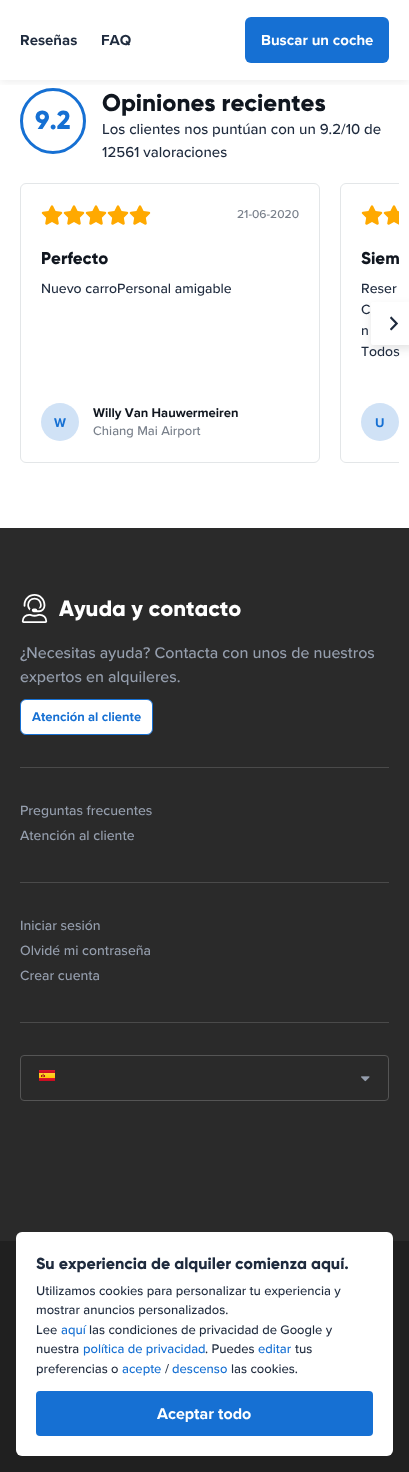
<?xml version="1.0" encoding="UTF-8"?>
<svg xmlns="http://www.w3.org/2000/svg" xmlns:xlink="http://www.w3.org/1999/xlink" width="409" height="1472">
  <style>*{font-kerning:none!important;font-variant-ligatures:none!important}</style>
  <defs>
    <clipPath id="clip1"><rect x="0" y="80" width="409" height="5" /></clipPath>
    <clipPath id="clip2"><rect x="10" y="183" width="389" height="280" /></clipPath>
  </defs>
  <rect width="100%" height="100%" fill="#ffffff" />
  <circle cx="53" cy="121" r="31.5" fill="none" stroke="#1670d3" stroke-width="3" />
  <g clip-path="url(#clip1)">
    <rect y="2" width="409" height="80" fill="#000000" fill-opacity="0.07" filter="blur(5px)" />
  </g>
  <rect x="245" y="17" width="144" height="46" rx="6" fill="#1670d3" />
  <rect x="20.5" y="183.5" width="299" height="279" rx="5.5" fill="none" stroke="#e3e6e8" />
  <image x="41" y="205" width="22" height="20" xlink:href="image1.png" />
  <image x="63" y="205" width="22" height="20" xlink:href="image1.png" />
  <image x="85" y="205" width="22" height="20" xlink:href="image1.png" />
  <image x="107" y="205" width="22" height="20" xlink:href="image1.png" />
  <image x="129" y="205" width="22" height="20" xlink:href="image1.png" />
  <circle cx="60" cy="422" r="19" fill="#d0e2f6" />
  <g clip-path="url(#clip2)">
    <rect x="340.5" y="183.5" width="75" height="279" rx="5.5" fill="none" stroke="#e3e6e8" />
  </g>
  <image x="361" y="205" width="22" height="20" xlink:href="image1.png" />
  <image x="383" y="205" width="16" height="20" xlink:href="image2.png" />
  <circle cx="380" cy="422" r="19" fill="#d0e2f6" />
  <rect x="371" y="306" width="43" height="43" rx="2" fill="#212125" fill-opacity="0.12" filter="blur(4px)" />
  <rect x="371" y="302" width="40" height="43" rx="2" fill="#ffffff" />
  <image x="390" y="316" width="8" height="15" xlink:href="image3.png" />
  <rect y="528" width="409" height="713" fill="#2a2a2a" />
  <rect x="20" y="767" width="369" height="1" fill="#4a4a4a" />
  <image x="21" y="594" width="27" height="29" xlink:href="image4.png" />
  <rect x="20.5" y="699.5" width="132" height="35" rx="5.5" fill="#ffffff" stroke="#1670d3" />
  <rect x="20" y="882" width="369" height="1" fill="#4a4a4a" />
  <rect x="20" y="1022" width="369" height="1" fill="#4a4a4a" />
  <rect x="20.5" y="1055.5" width="368" height="45" rx="3.5" fill="none" stroke="#555555" />
  <image x="39" y="1070" width="16" height="11" xlink:href="image5.png" />
  <image x="361" y="1076" width="9" height="6" xlink:href="image6.png" />
  <rect y="1241" width="409" height="231" fill="#202020" />
  <rect x="16" y="1232" width="377" height="224" rx="6" fill="#ffffff" />
  <rect x="36" y="1391" width="337" height="45" rx="4" fill="#1670d3" />
  <text x="20" y="45" style="font-family: Proxima Nova; font-size: 15px; font-weight: bold; fill: #1f2b3e">Reseñas</text>
  <text x="101" y="45" style="font-family: Proxima Nova; font-size: 15px; font-weight: bold; fill: #1f2b3e">FAQ</text>
  <text x="261" y="45" style="font-family: Proxima Nova; font-size: 15px; font-weight: bold; fill: #ffffff">Buscar un coche</text>
  <text x="35" y="129" style="font-family: Gilroy; font-size: 26px; font-weight: 800; fill: #1670d3">9.2</text>
  <text x="102" y="111" style="font-family: Gilroy; font-size: 24px; font-weight: 800; fill: #10161f">Opiniones recientes</text>
  <text x="102" y="134" style="font-family: Proxima Nova; font-size: 15px; font-weight: 500; fill: #1f2b3e">Los clientes nos puntúan con un 9.2/10 de</text>
  <text x="102" y="157" style="font-family: Proxima Nova; font-size: 15px; font-weight: 500; fill: #1f2b3e">12561 valoraciones</text>
  <text x="237" y="218" style="font-family: Proxima Nova; font-size: 12px; font-weight: 500; fill: #79808b">21-06-2020</text>
  <text x="41" y="264" style="font-family: Gilroy; font-size: 17px; font-weight: 800; fill: #10161f">Perfecto</text>
  <text x="41" y="293" style="font-family: Proxima Nova; font-size: 14px; font-weight: 500; fill: #1f2b3e">Nuevo carroPersonal amigable</text>
  <text x="54" y="427" style="font-family: Proxima Nova; font-size: 13px; font-weight: bold; fill: #1670d3">W</text>
  <text x="93" y="417" style="font-family: Proxima Nova; font-size: 13px; font-weight: bold; fill: #10161f">Willy Van Hauwermeiren</text>
  <text x="93" y="435" style="font-family: Proxima Nova; font-size: 13px; font-weight: 500; fill: #79808b">Chiang Mai Airport</text>
  <text x="361" y="264" style="font-family: Gilroy; font-size: 17px; font-weight: 800; fill: #10161f">Siem</text>
  <text x="361" y="293" style="font-family: Proxima Nova; font-size: 14px; font-weight: 500; fill: #1f2b3e">Reser</text>
  <text x="361" y="314" style="font-family: Proxima Nova; font-size: 14px; font-weight: 500; fill: #1f2b3e">C</text>
  <text x="361" y="335" style="font-family: Proxima Nova; font-size: 14px; font-weight: 500; fill: #1f2b3e">n</text>
  <text x="361" y="356" style="font-family: Proxima Nova; font-size: 14px; font-weight: 500; fill: #1f2b3e">Todos</text>
  <text x="375" y="427" style="font-family: Proxima Nova; font-size: 13px; font-weight: bold; fill: #1670d3">U</text>
  <text x="59" y="616" style="font-family: Gilroy; font-size: 22px; font-weight: 800; fill: #ffffff">Ayuda y contacto</text>
  <text x="20" y="658" style="font-family: Proxima Nova; font-size: 16px; font-weight: 500; fill: #959ead">¿Necesitas ayuda? Contacta con unos de nuestros</text>
  <text x="20" y="682" style="font-family: Proxima Nova; font-size: 16px; font-weight: 500; fill: #959ead">expertos en alquileres.</text>
  <text x="32" y="721" style="font-family: Proxima Nova; font-size: 13px; font-weight: bold; fill: #1670d3">Atención al cliente</text>
  <text x="20" y="815" style="font-family: Proxima Nova; font-size: 14px; font-weight: 500; fill: #959ead">Preguntas frecuentes</text>
  <text x="20" y="840" style="font-family: Proxima Nova; font-size: 14px; font-weight: 500; fill: #959ead">Atención al cliente</text>
  <text x="20" y="930" style="font-family: Proxima Nova; font-size: 14px; font-weight: 500; fill: #959ead">Iniciar sesión</text>
  <text x="20" y="955" style="font-family: Proxima Nova; font-size: 14px; font-weight: 500; fill: #959ead">Olvidé mi contraseña</text>
  <text x="20" y="980" style="font-family: Proxima Nova; font-size: 14px; font-weight: 500; fill: #959ead">Crear cuenta</text>
  <text x="36" y="1269" style="font-family: Gilroy; font-size: 16px; font-weight: 800; fill: #1f2b3e">Su experiencia de alquiler comienza aquí.</text>
  <text x="36" y="1295" style="font-family: Proxima Nova; font-size: 13px; font-weight: 500; fill: #1f2b3e">Utilizamos cookies para personalizar tu experiencia y</text>
  <text x="36" y="1314" style="font-family: Proxima Nova; font-size: 13px; font-weight: 500; fill: #1f2b3e">mostrar anuncios personalizados.</text>
  <text x="36" y="1334" style="font-family: Proxima Nova; font-size: 13px; font-weight: 500; fill: #1f2b3e">Lee</text>
  <text x="61" y="1334" style="font-family: Proxima Nova; font-size: 13px; font-weight: 500; fill: #1670d3">aquí</text>
  <text x="89" y="1334" style="font-family: Proxima Nova; font-size: 13px; font-weight: 500; fill: #1f2b3e">las condiciones de privacidad de Google y</text>
  <text x="36" y="1353" style="font-family: Proxima Nova; font-size: 13px; font-weight: 500; fill: #1f2b3e">nuestra</text>
  <text x="83" y="1353" style="font-family: Proxima Nova; font-size: 13px; font-weight: 500; fill: #1670d3">política de privacidad</text>
  <text x="205" y="1353" style="font-family: Proxima Nova; font-size: 13px; font-weight: 500; fill: #1f2b3e">. Puedes</text>
  <text x="258" y="1353" style="font-family: Proxima Nova; font-size: 13px; font-weight: 500; fill: #1670d3">editar</text>
  <text x="295" y="1353" style="font-family: Proxima Nova; font-size: 13px; font-weight: 500; fill: #1f2b3e">tus</text>
  <text x="36" y="1373" style="font-family: Proxima Nova; font-size: 13px; font-weight: 500; fill: #1f2b3e">preferencias o</text>
  <text x="122" y="1373" style="font-family: Proxima Nova; font-size: 13px; font-weight: 500; fill: #1670d3">acepte</text>
  <text x="165" y="1373" style="font-family: Proxima Nova; font-size: 13px; font-weight: 500; fill: #1f2b3e">/</text>
  <text x="172" y="1373" style="font-family: Proxima Nova; font-size: 13px; font-weight: 500; fill: #1670d3">descenso</text>
  <text x="231" y="1373" style="font-family: Proxima Nova; font-size: 13px; font-weight: 500; fill: #1f2b3e">las cookies.</text>
  <text x="157" y="1419" style="font-family: Proxima Nova; font-size: 16px; font-weight: bold; fill: #ffffff">Aceptar todo</text>
</svg>
